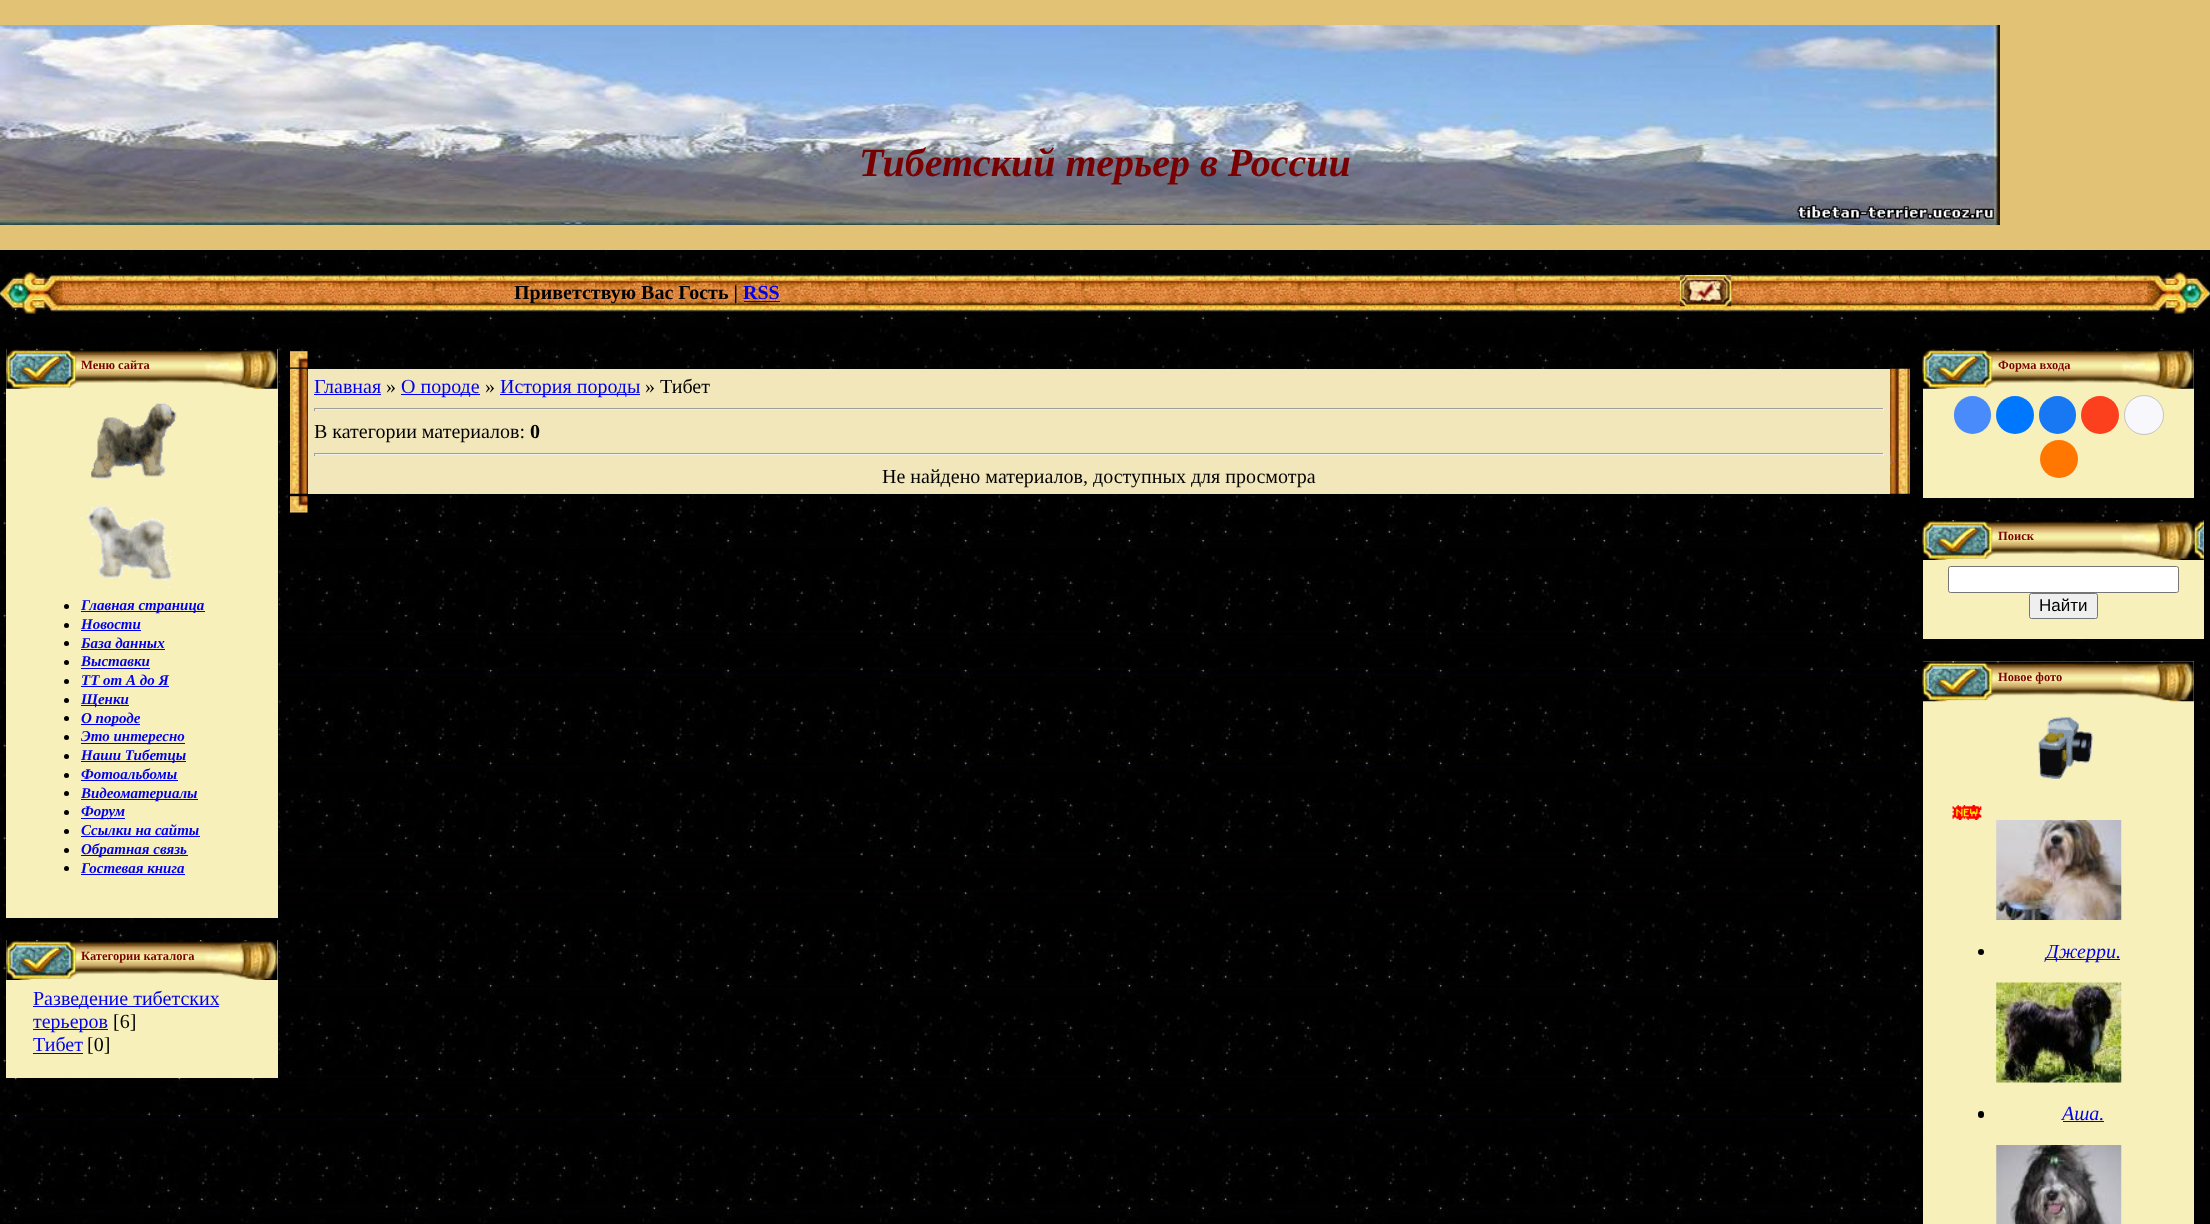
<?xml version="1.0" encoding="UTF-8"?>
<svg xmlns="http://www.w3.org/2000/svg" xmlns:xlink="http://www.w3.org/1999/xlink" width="2210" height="1224">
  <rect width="100%" height="100%" fill="#ffffff" />
  <image x="0" y="250" width="2210" height="974" xlink:href="image1.png" />
  <rect width="2210" height="250" fill="#e2c275" />
  <image x="0" y="25" width="2000" height="200" xlink:href="image2.png" />
  <image x="0" y="272" width="2210" height="42" xlink:href="image3.png" />
  <image x="0" y="272" width="63" height="42" xlink:href="image4.png" />
  <rect x="744" y="301" width="36" height="1" fill="#0000ee" />
  <image x="1680" y="275" width="52" height="32" xlink:href="image5.png" />
  <image x="2147" y="272" width="63" height="42" xlink:href="image6.png" />
  <rect x="6" y="349" width="272" height="569" fill="#f7f0bb" />
  <image x="6" y="348" width="272" height="41" xlink:href="image7.png" />
  <image x="91" y="403" width="86" height="76" xlink:href="image8.png" />
  <image x="81" y="506" width="95" height="82" xlink:href="image9.png" />
  <circle cx="66.5" cy="606.5" r="2.5" fill="#000000" />
  <rect x="81" y="611" width="124" height="1" fill="#0000ee" />
  <circle cx="66.5" cy="625.5" r="2.5" fill="#000000" />
  <rect x="81" y="630" width="60" height="1" fill="#0000ee" />
  <circle cx="66.5" cy="643.5" r="2.5" fill="#000000" />
  <rect x="81" y="649" width="84" height="1" fill="#0000ee" />
  <circle cx="66.5" cy="662.5" r="2.5" fill="#000000" />
  <rect x="81" y="668" width="69" height="1" fill="#0000ee" />
  <circle cx="66.5" cy="681.5" r="2.5" fill="#000000" />
  <rect x="81" y="686" width="88" height="1" fill="#0000ee" />
  <circle cx="66.5" cy="700.5" r="2.5" fill="#000000" />
  <rect x="81" y="705" width="48" height="1" fill="#0000ee" />
  <circle cx="66.5" cy="718.5" r="2.5" fill="#000000" />
  <rect x="81" y="724" width="59" height="1" fill="#0000ee" />
  <circle cx="66.5" cy="737.5" r="2.5" fill="#000000" />
  <rect x="81" y="743" width="104" height="1" fill="#0000ee" />
  <circle cx="66.5" cy="756.5" r="2.5" fill="#000000" />
  <rect x="81" y="761" width="105" height="1" fill="#0000ee" />
  <circle cx="66.5" cy="775.5" r="2.5" fill="#000000" />
  <rect x="81" y="780" width="97" height="1" fill="#0000ee" />
  <circle cx="66.5" cy="793.5" r="2.5" fill="#000000" />
  <rect x="81" y="799" width="117" height="1" fill="#0000ee" />
  <circle cx="66.5" cy="812.5" r="2.5" fill="#000000" />
  <rect x="81" y="818" width="44" height="1" fill="#0000ee" />
  <circle cx="66.5" cy="831.5" r="2.5" fill="#000000" />
  <rect x="81" y="836" width="119" height="1" fill="#0000ee" />
  <circle cx="66.5" cy="850.5" r="2.5" fill="#000000" />
  <rect x="81" y="855" width="107" height="1" fill="#0000ee" />
  <circle cx="66.5" cy="868.5" r="2.5" fill="#000000" />
  <rect x="81" y="874" width="104" height="1" fill="#0000ee" />
  <rect x="6" y="940" width="272" height="138" fill="#f7f0bb" />
  <image x="6" y="940" width="272" height="40" xlink:href="image10.png" />
  <rect x="33" y="1006" width="186" height="1" fill="#0000ee" />
  <rect x="33" y="1029" width="75" height="1" fill="#0000ee" />
  <rect x="33" y="1053" width="50" height="1" fill="#0000ee" />
  <image x="290" y="351" width="18" height="17" xlink:href="image11.png" />
  <image x="290" y="368" width="18" height="126" xlink:href="image12.png" />
  <rect x="308" y="369" width="1582" height="125" fill="#f2e7ba" />
  <rect x="314" y="394" width="67" height="1" fill="#0000ee" />
  <rect x="401" y="394" width="79" height="1" fill="#0000ee" />
  <rect x="500" y="394" width="140" height="1" fill="#0000ee" />
  <rect x="314" y="408" width="1570" height="1" fill="#9f9f9f" />
  <rect x="1883" y="408" width="1" height="3" fill="#eeeeee" />
  <rect x="314" y="409" width="1570" height="1" fill="#eeeeee" />
  <rect x="314" y="408" width="1" height="3" fill="#9f9f9f" />
  <rect x="314" y="453" width="1570" height="1" fill="#9f9f9f" />
  <rect x="1883" y="453" width="1" height="3" fill="#eeeeee" />
  <rect x="314" y="454" width="1570" height="1" fill="#eeeeee" />
  <rect x="314" y="453" width="1" height="3" fill="#9f9f9f" />
  <image x="1890" y="368" width="20" height="126" xlink:href="image13.png" />
  <image x="290" y="496" width="18" height="17" xlink:href="image14.png" />
  <rect x="1923" y="349" width="271" height="149" fill="#f7f0bb" />
  <image x="1922" y="348" width="272" height="41" xlink:href="image15.png" />
  <rect x="1954" y="396" width="37" height="38" rx="18.5" fill="#498bfa" />
  <circle cx="2015" cy="415" r="19" fill="#0077ff" />
  <rect x="2039" y="396" width="37" height="38" rx="18.5" fill="#1877f2" />
  <circle cx="2100" cy="415" r="19" fill="#fc3f1d" />
  <circle cx="2144" cy="415" r="19.5" fill="#f8f8fc" stroke="#c4c4c4" />
  <circle cx="2059" cy="459" r="19" fill="#ff7700" />
  <rect x="1923" y="520" width="281" height="119" fill="#f7f0bb" />
  <image x="1922" y="520" width="282" height="40" xlink:href="image16.png" />
  <rect x="1948.5" y="566.5" width="230" height="26" rx="2" fill="#ffffff" stroke="#767676" />
  <rect x="2029.5" y="593.5" width="68" height="25" rx="2" fill="#efefef" stroke="#767676" />
  <rect x="1923" y="661" width="271" height="563" fill="#f7f0bb" />
  <image x="1922" y="661" width="272" height="41" xlink:href="image17.png" />
  <image x="2038" y="717" width="55" height="62" xlink:href="image18.png" />
  <image x="1952" y="805" width="30" height="15" xlink:href="image19.png" />
  <image x="1996" y="820" width="126" height="100" xlink:href="image20.png" />
  <circle cx="1981" cy="952" r="3" fill="#000000" />
  <rect x="2046" y="959" width="74" height="1" fill="#0000ee" />
  <image x="1996" y="982" width="126" height="101" xlink:href="image21.png" />
  <rect x="1978" y="1111" width="6" height="7" rx="3" fill="#000000" />
  <rect x="2063" y="1121" width="41" height="1" fill="#0000ee" />
  <image x="1996" y="1145" width="126" height="79" xlink:href="image22.png" />
  <text x="859" y="176" style="font-family: Liberation Serif; font-size: 40px; font-weight: bold; font-style: italic; fill: #790000">Тибетский терьер в России</text>
  <text x="514" y="299" style="font-family: Liberation Serif; font-size: 20px; font-weight: bold; fill: #000000">Приветствую Вас Гость |</text>
  <text x="743" y="299" style="font-family: Liberation Serif; font-size: 20px; font-weight: bold; fill: #0000ee">RSS</text>
  <text x="81" y="369" style="font-family: Liberation Serif; font-size: 12.5px; font-weight: bold; fill: #790000">Меню сайта</text>
  <text x="81" y="610" style="font-family: Liberation Serif; font-size: 15px; font-weight: bold; font-style: italic; fill: #0000ee">Главная страница</text>
  <text x="81" y="629" style="font-family: Liberation Serif; font-size: 15px; font-weight: bold; font-style: italic; fill: #0000ee">Новости</text>
  <text x="81" y="648" style="font-family: Liberation Serif; font-size: 15px; font-weight: bold; font-style: italic; fill: #0000ee">База данных</text>
  <text x="81" y="666" style="font-family: Liberation Serif; font-size: 15px; font-weight: bold; font-style: italic; fill: #0000ee">Выставки</text>
  <text x="81" y="685" style="font-family: Liberation Serif; font-size: 15px; font-weight: bold; font-style: italic; fill: #0000ee">ТТ от А до Я</text>
  <text x="81" y="704" style="font-family: Liberation Serif; font-size: 15px; font-weight: bold; font-style: italic; fill: #0000ee">Щенки</text>
  <text x="81" y="723" style="font-family: Liberation Serif; font-size: 15px; font-weight: bold; font-style: italic; fill: #0000ee">О породе</text>
  <text x="81" y="741" style="font-family: Liberation Serif; font-size: 15px; font-weight: bold; font-style: italic; fill: #0000ee">Это интересно</text>
  <text x="81" y="760" style="font-family: Liberation Serif; font-size: 15px; font-weight: bold; font-style: italic; fill: #0000ee">Наши Тибетцы</text>
  <text x="81" y="779" style="font-family: Liberation Serif; font-size: 15px; font-weight: bold; font-style: italic; fill: #0000ee">Фотоальбомы</text>
  <text x="81" y="798" style="font-family: Liberation Serif; font-size: 15px; font-weight: bold; font-style: italic; fill: #0000ee">Видеоматериалы</text>
  <text x="81" y="816" style="font-family: Liberation Serif; font-size: 15px; font-weight: bold; font-style: italic; fill: #0000ee">Форум</text>
  <text x="81" y="835" style="font-family: Liberation Serif; font-size: 15px; font-weight: bold; font-style: italic; fill: #0000ee">Cсылки на сайты</text>
  <text x="81" y="854" style="font-family: Liberation Serif; font-size: 15px; font-weight: bold; font-style: italic; fill: #0000ee">Обратная связь</text>
  <text x="81" y="873" style="font-family: Liberation Serif; font-size: 15px; font-weight: bold; font-style: italic; fill: #0000ee">Гостевая книга</text>
  <text x="81" y="960" style="font-family: Liberation Serif; font-size: 12.5px; font-weight: bold; fill: #790000">Категории каталога</text>
  <text x="33" y="1005" style="font-family: Liberation Serif; font-size: 20px; fill: #0000ee">Разведение тибетских</text>
  <text x="33" y="1028" style="font-family: Liberation Serif; font-size: 20px; fill: #0000ee">терьеров</text>
  <text x="113" y="1028" style="font-family: Liberation Serif; font-size: 20px; fill: #000000">[6]</text>
  <text x="33" y="1051" style="font-family: Liberation Serif; font-size: 20px; fill: #0000ee">Тибет</text>
  <text x="87" y="1051" style="font-family: Liberation Serif; font-size: 20px; fill: #000000">[0]</text>
  <text x="314" y="393" style="font-family: Liberation Serif; font-size: 20px; fill: #0000ee">Главная</text>
  <text x="386" y="393" style="font-family: Liberation Serif; font-size: 20px; fill: #000000">»</text>
  <text x="401" y="393" style="font-family: Liberation Serif; font-size: 20px; fill: #0000ee">О породе</text>
  <text x="485" y="393" style="font-family: Liberation Serif; font-size: 20px; fill: #000000">»</text>
  <text x="500" y="393" style="font-family: Liberation Serif; font-size: 20px; fill: #0000ee">История породы</text>
  <text x="645" y="393" style="font-family: Liberation Serif; font-size: 20px; fill: #000000">» Тибет</text>
  <text x="314" y="438" style="font-family: Liberation Serif; font-size: 20px; fill: #000000">В категории материалов:</text>
  <text x="530" y="438" style="font-family: Liberation Serif; font-size: 20px; font-weight: bold; fill: #000000">0</text>
  <text x="882" y="483" style="font-family: Liberation Serif; font-size: 20px; fill: #000000">Не найдено материалов, доступных для просмотра</text>
  <text x="1998" y="369" style="font-family: Liberation Serif; font-size: 12.5px; font-weight: bold; fill: #790000">Форма входа</text>
  <text x="1998" y="540" style="font-family: Liberation Serif; font-size: 12.5px; font-weight: bold; fill: #790000">Поиск</text>
  <text x="2039" y="611" style="font-family: Liberation Sans; font-size: 17px; fill: #000000">Найти</text>
  <text x="1998" y="681" style="font-family: Liberation Serif; font-size: 12.5px; font-weight: bold; fill: #790000">Новое фото</text>
  <text x="2046" y="958" style="font-family: Liberation Serif; font-size: 20px; font-style: italic; fill: #0000ee">Джерри.</text>
  <text x="2062" y="1120" style="font-family: Liberation Serif; font-size: 20px; font-style: italic; fill: #0000ee">Аша.</text>
</svg>
